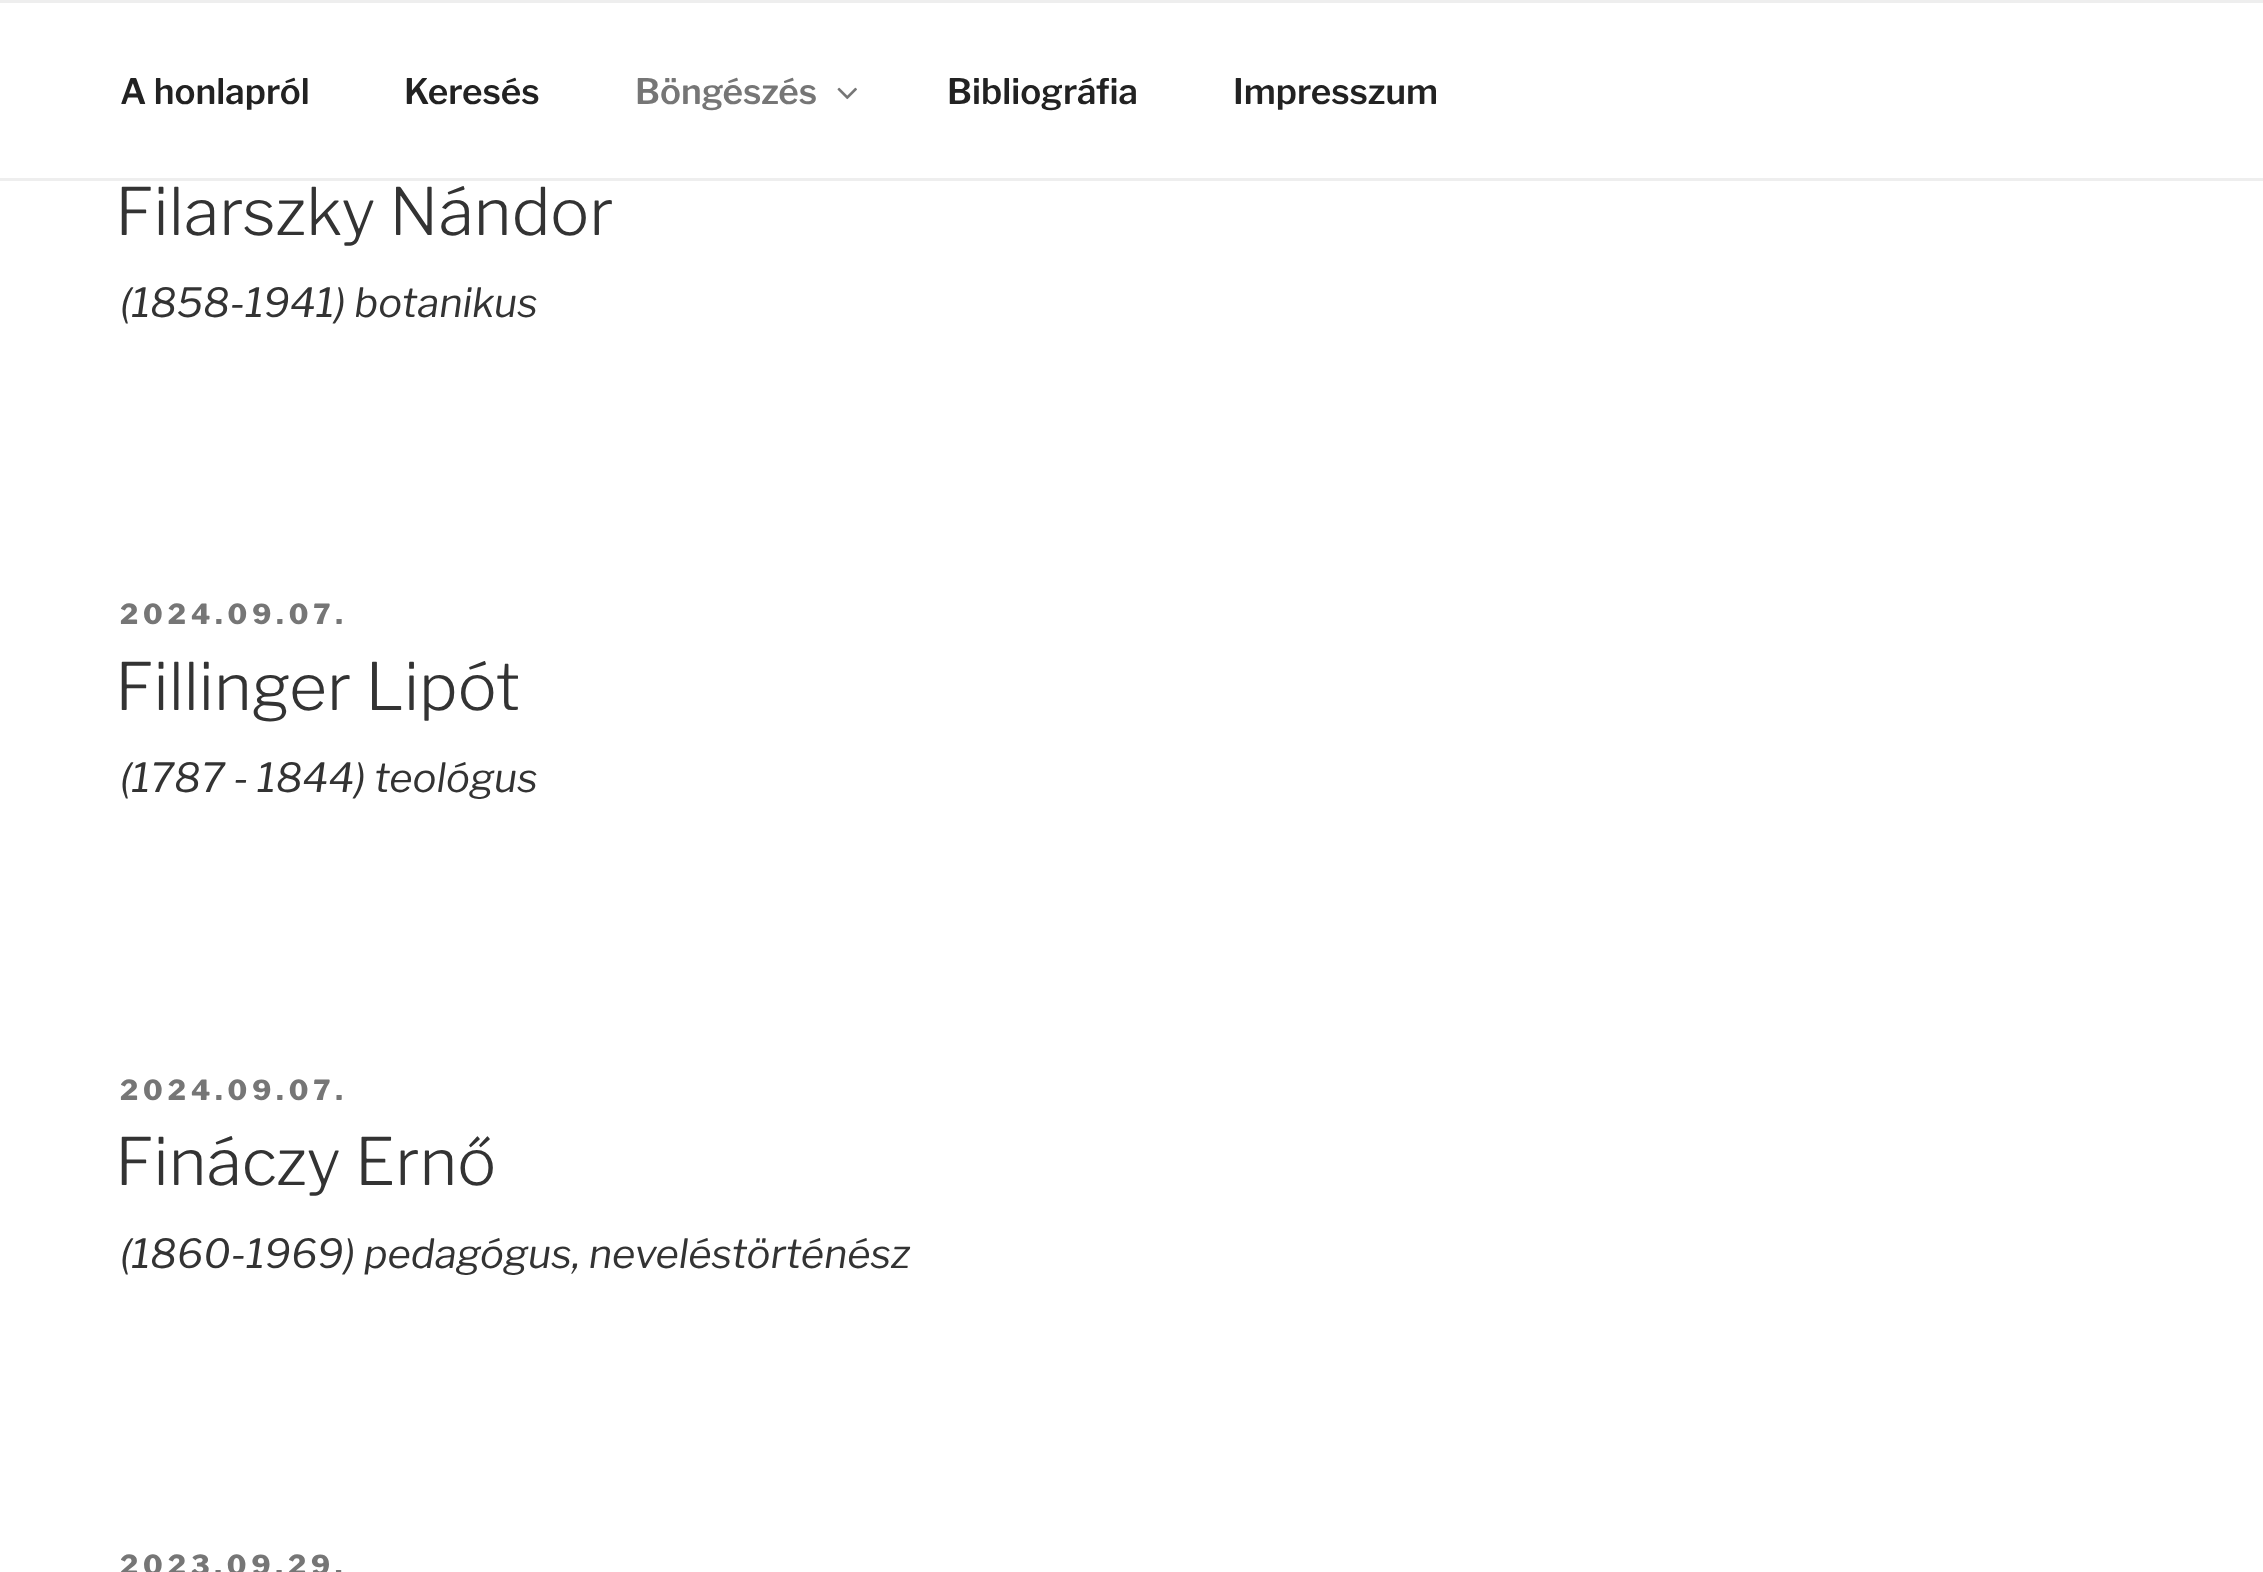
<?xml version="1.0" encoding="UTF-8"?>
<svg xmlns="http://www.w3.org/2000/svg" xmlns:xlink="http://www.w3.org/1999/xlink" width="2263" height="1572">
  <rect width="100%" height="100%" fill="#ffffff" />
  <rect width="2263" height="3" fill="#eeeeee" />
  <rect y="178" width="2263" height="3" fill="#eeeeee" />
  <image x="837" y="87" width="20" height="13" xlink:href="image1.png" />
  <text x="120" y="104" style="font-family: 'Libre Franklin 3'; font-size: 35px; font-weight: 100; fill: #222222">A honlapról</text>
  <text x="404" y="104" style="font-family: 'Libre Franklin 3'; font-size: 35px; font-weight: 100; fill: #222222">Keresés</text>
  <text x="635" y="104" style="font-family: 'Libre Franklin 3'; font-size: 35px; font-weight: 100; fill: #767676">Böngészés</text>
  <text x="947" y="104" style="font-family: 'Libre Franklin 3'; font-size: 35px; font-weight: 100; fill: #222222">Bibliográfia</text>
  <text x="1233" y="104" style="font-family: 'Libre Franklin 3'; font-size: 35px; font-weight: 100; fill: #222222">Impresszum</text>
  <text x="115" y="235" style="font-family: Libre Franklin; font-size: 65px; font-weight: 100; fill: #333333">Filarszky Nándor</text>
  <text x="120" y="317" style="font-family: Libre Franklin; font-size: 40px; font-weight: 100; font-style: italic; fill: #333333">(1858-1941) botanikus</text>
  <text x="120" y="624" style="font-family: 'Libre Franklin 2'; font-size: 27.5px; font-weight: 100; letter-spacing: 5px; fill: #767676">2024.09.07.</text>
  <text x="115" y="710" style="font-family: Libre Franklin; font-size: 65px; font-weight: 100; fill: #333333">Fillinger Lipót</text>
  <text x="120" y="792" style="font-family: Libre Franklin; font-size: 40px; font-weight: 100; font-style: italic; fill: #333333">(1787 - 1844) teológus</text>
  <text x="120" y="1100" style="font-family: 'Libre Franklin 2'; font-size: 27.5px; font-weight: 100; letter-spacing: 5px; fill: #767676">2024.09.07.</text>
  <text x="115" y="1185" style="font-family: Libre Franklin; font-size: 65px; font-weight: 100; fill: #333333">Fináczy Ernő</text>
  <text x="120" y="1268" style="font-family: Libre Franklin; font-size: 40px; font-weight: 100; font-style: italic; fill: #333333">(1860-1969) pedagógus, neveléstörténész</text>
  <text x="120" y="1575" style="font-family: 'Libre Franklin 2'; font-size: 27.5px; font-weight: 100; letter-spacing: 5px; fill: #767676">2023.09.29.</text>
</svg>
